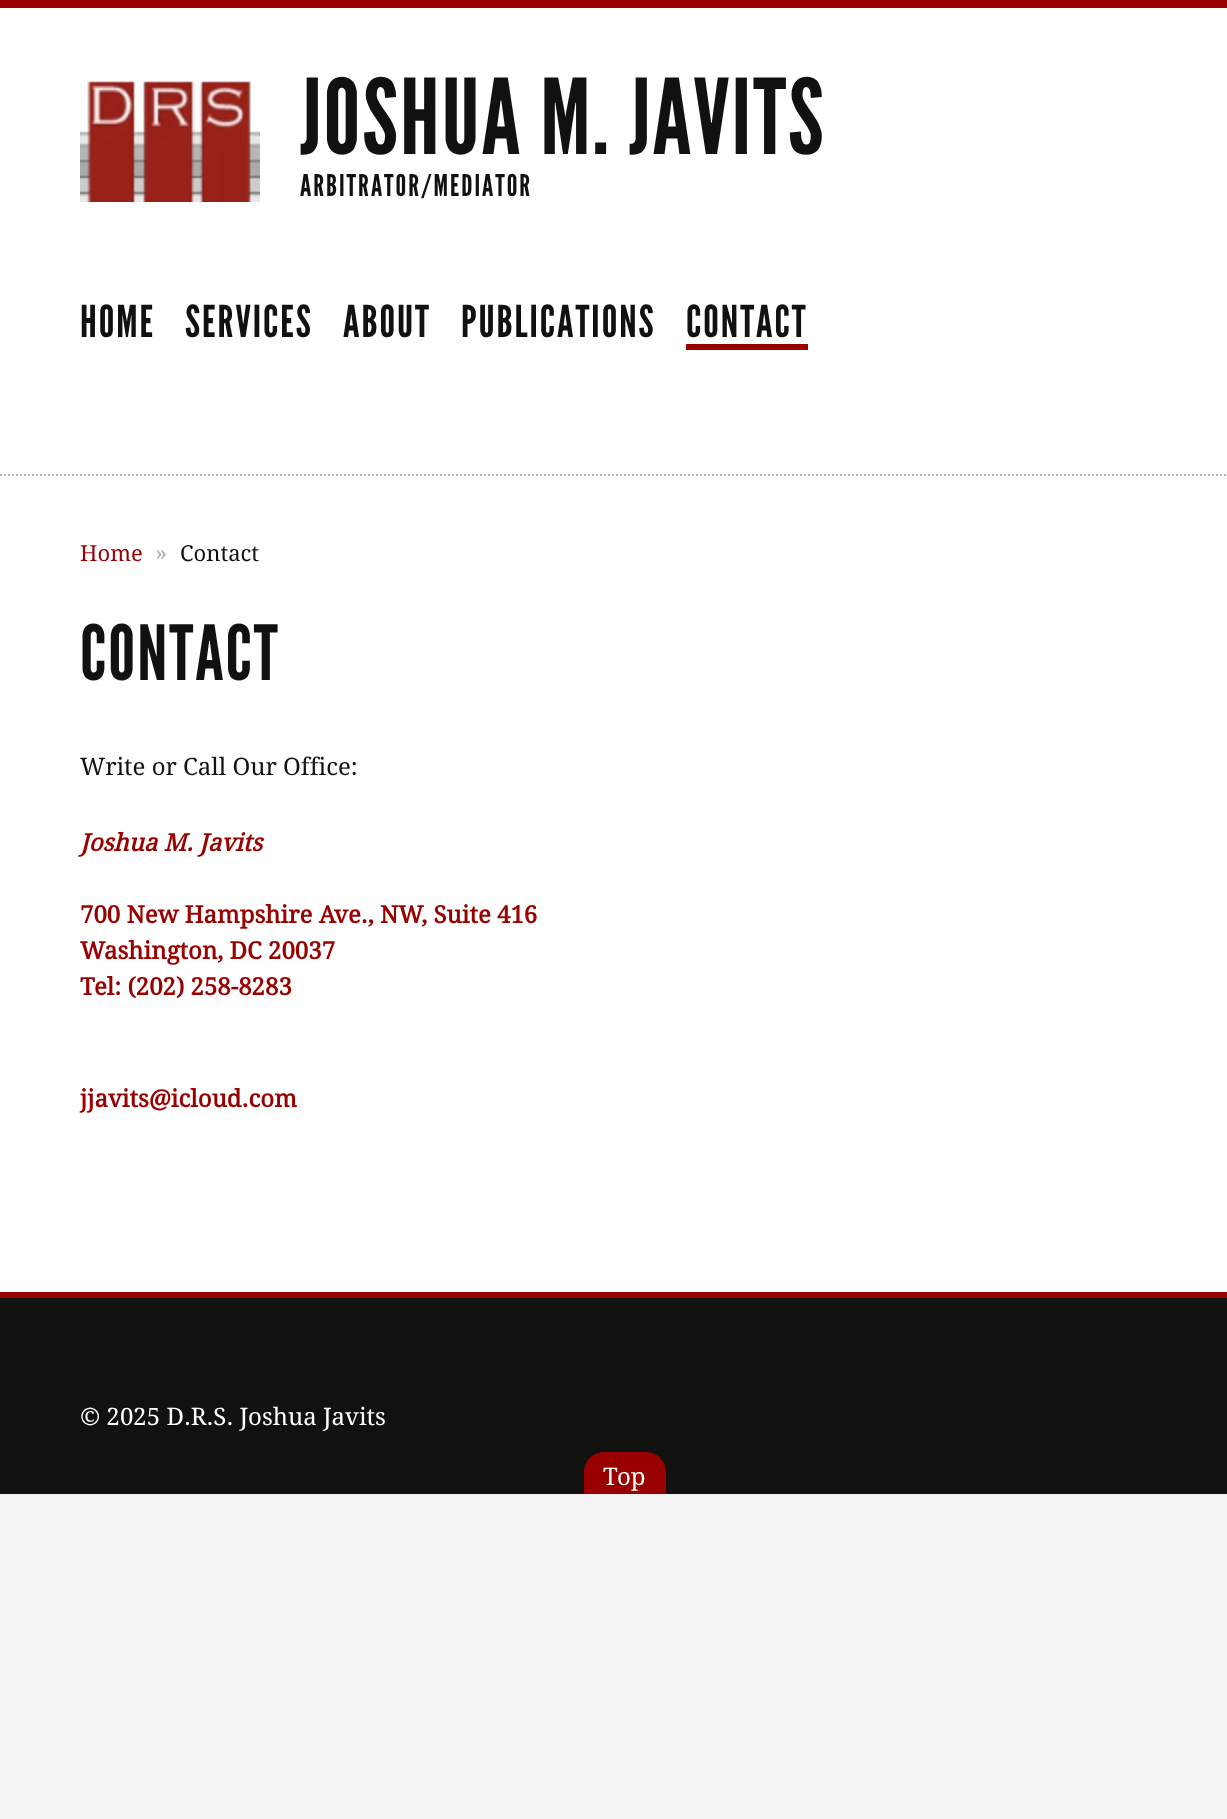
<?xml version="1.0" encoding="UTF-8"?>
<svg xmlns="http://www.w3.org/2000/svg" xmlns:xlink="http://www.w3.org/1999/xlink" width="1227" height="1819">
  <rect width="100%" height="100%" fill="#f3f3f3" />
  <rect width="1227" height="8" fill="#990000" />
  <rect y="8" width="1227" height="1284" fill="#ffffff" />
  <path d="M 0 475 h 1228" fill="none" stroke="#b2b0b0" stroke-width="2" stroke-dasharray="2 2" />
  <image x="80" y="81" width="180" height="121" xlink:href="image1.png" />
  <rect x="686" y="344" width="122" height="6" fill="#990000" />
  <rect y="1298" width="1227" height="196" fill="#111110" />
  <rect y="1292" width="1227" height="6" fill="#990000" />
  <path d="M 604 1452 h 42 c 11 0 20 9 20 20 v 22 h -82 v -22 c 0 -11 9 -20 20 -20 z" fill="#990000" />
  <text x="300" y="154" style="font-family: League Gothic; font-size: 104px; letter-spacing: 2px; fill: #111112">JOSHUA M. JAVITS</text>
  <text x="300" y="196" style="font-family: League Gothic; font-size: 30px; letter-spacing: 2px; fill: #111112">ARBITRATOR/MEDIATOR</text>
  <text x="80" y="337" style="font-family: League Gothic; font-size: 44px; letter-spacing: 2px; fill: #111112">HOME</text>
  <text x="185" y="337" style="font-family: League Gothic; font-size: 44px; letter-spacing: 2px; fill: #111112">SERVICES</text>
  <text x="343" y="337" style="font-family: League Gothic; font-size: 44px; letter-spacing: 2px; fill: #111112">ABOUT</text>
  <text x="461" y="337" style="font-family: League Gothic; font-size: 44px; letter-spacing: 2px; fill: #111112">PUBLICATIONS</text>
  <text x="686" y="337" style="font-family: League Gothic; font-size: 44px; letter-spacing: 2px; fill: #111112">CONTACT</text>
  <text x="80" y="561" style="font-family: Droid Serif; font-size: 22px; fill: #990000">Home</text>
  <text x="155" y="561" style="font-family: Droid Serif; font-size: 24px; fill: #b2b0b0">»</text>
  <text x="180" y="561" style="font-family: Droid Serif; font-size: 22px; fill: #111112">Contact</text>
  <text x="80" y="680" style="font-family: League Gothic; font-size: 76px; letter-spacing: 2px; fill: #111112">CONTACT</text>
  <text x="80" y="775" style="font-family: Droid Serif; font-size: 24px; fill: #111112">Write or Call Our Office:</text>
  <text x="80" y="851" style="font-family: Droid Serif; font-size: 24px; font-weight: bold; font-style: italic; fill: #990000">Joshua M. Javits</text>
  <text x="80" y="923" style="font-family: Droid Serif; font-size: 24px; font-weight: bold; fill: #990000">700 New Hampshire Ave., NW, Suite 416</text>
  <text x="80" y="959" style="font-family: Droid Serif; font-size: 24px; font-weight: bold; fill: #990000">Washington, DC 20037</text>
  <text x="80" y="995" style="font-family: Droid Serif; font-size: 24px; font-weight: bold; fill: #990000">Tel: (202) 258-8283</text>
  <text x="80" y="1107" style="font-family: Droid Serif; font-size: 24px; font-weight: bold; fill: #990000">jjavits@icloud.com</text>
  <text x="80" y="1425" style="font-family: Droid Serif; font-size: 24px; fill: #fffffc">© 2025 D.R.S. Joshua Javits</text>
  <text x="603" y="1485" style="font-family: Droid Serif; font-size: 24px; fill: #fffffc">Top</text>
</svg>
